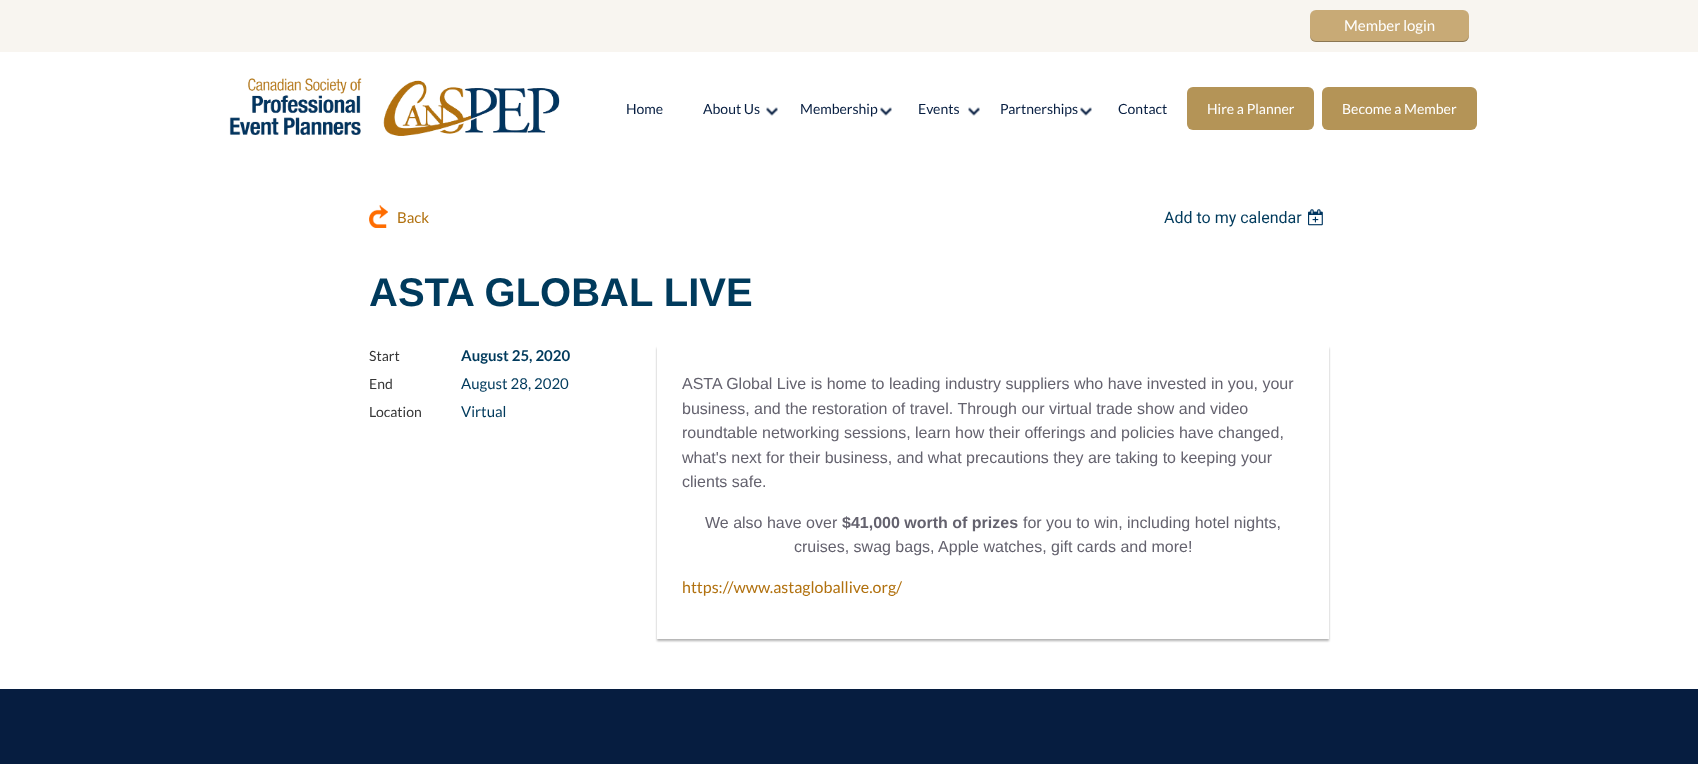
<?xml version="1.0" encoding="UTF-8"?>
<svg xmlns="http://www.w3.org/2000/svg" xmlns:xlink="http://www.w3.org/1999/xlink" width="1698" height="764">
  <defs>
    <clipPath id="clip1"><path d="M 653 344 h 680 v 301 h -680 z m 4 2 h 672 v 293 h -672 z" clip-rule="evenodd" /></clipPath>
  </defs>
  <rect width="100%" height="100%" fill="#ffffff" />
  <rect width="1698" height="52" fill="#f8f5f0" />
  <rect x="1310" y="10" width="159" height="32" rx="6" fill="#c8aa76" />
  <path d="M 1310 35 v 1 c 0 3 3 6 6 6 h 147 c 3 0 6 -3 6 -6 v -1 c 0 3 -3 6 -6 6 h -147 c -3 0 -6 -3 -6 -6 z" fill="#000000" fill-opacity="0.3" />
  <image x="229" y="78" width="331" height="58" xlink:href="image1.png" />
  <image x="766" y="107" width="12" height="9" xlink:href="image2.png" />
  <image x="880" y="107" width="12" height="9" xlink:href="image2.png" />
  <image x="968" y="107" width="12" height="9" xlink:href="image2.png" />
  <image x="1080" y="107" width="12" height="9" xlink:href="image2.png" />
  <rect x="1187" y="87" width="127" height="43" rx="6" fill="#b49457" />
  <rect x="1322" y="87" width="155" height="43" rx="6" fill="#b49457" />
  <image x="369" y="205" width="19" height="23" xlink:href="image3.png" />
  <image x="1308" y="209" width="15" height="17" xlink:href="image4.png" />
  <g clip-path="url(#clip1)">
    <rect x="657" y="348" width="672" height="293" fill="#000000" fill-opacity="0.3" filter="blur(1px)" />
  </g>
  <rect y="689" width="1698" height="75" fill="#061d40" />
  <text x="1344" y="31" style="font-family: Lato; font-size: 15px; fill: #ffffff">Member login</text>
  <text x="626" y="114" style="font-family: Lato; font-size: 14px; fill: #061d40">Home</text>
  <text x="703" y="114" style="font-family: Lato; font-size: 14px; fill: #061d40">About Us</text>
  <text x="800" y="114" style="font-family: Lato; font-size: 14px; fill: #061d40">Membership</text>
  <text x="918" y="114" style="font-family: Lato; font-size: 14px; fill: #061d40">Events</text>
  <text x="1000" y="114" style="font-family: Lato; font-size: 14px; fill: #061d40">Partnerships</text>
  <text x="1118" y="114" style="font-family: Lato; font-size: 14px; fill: #061d40">Contact</text>
  <text x="1207" y="114" style="font-family: Lato; font-size: 14px; fill: #ffffff">Hire a Planner</text>
  <text x="1342" y="114" style="font-family: Lato; font-size: 14px; fill: #ffffff">Become a Member</text>
  <text x="397" y="223" style="font-family: Lato; font-size: 15px; fill: #b1710f">Back</text>
  <text x="1164" y="223" style="font-family: Roboto; font-size: 16px; fill: #003a5c">Add to my calendar</text>
  <text x="369" y="306" style="font-family: Liberation Sans; font-size: 40px; font-weight: bold; fill: #003a5c">ASTA GLOBAL LIVE</text>
  <text x="369" y="361" style="font-family: Lato; font-size: 14px; fill: #373737">Start</text>
  <text x="461" y="361" style="font-family: Lato; font-size: 15px; font-weight: bold; fill: #003a5c">August 25, 2020</text>
  <text x="369" y="389" style="font-family: Lato; font-size: 14px; fill: #373737">End</text>
  <text x="461" y="389" style="font-family: Lato; font-size: 15px; fill: #003a5c">August 28, 2020</text>
  <text x="369" y="417" style="font-family: Lato; font-size: 14px; fill: #373737">Location</text>
  <text x="461" y="417" style="font-family: Lato; font-size: 15px; fill: #003a5c">Virtual</text>
  <text x="682" y="389" style="font-family: Liberation Sans; font-size: 16px; fill: #64626e">ASTA Global Live is home to leading industry suppliers who have invested in you, your</text>
  <text x="682" y="414" style="font-family: Liberation Sans; font-size: 16px; fill: #64626e">business, and the restoration of travel. Through our virtual trade show and video</text>
  <text x="682" y="438" style="font-family: Liberation Sans; font-size: 16px; fill: #64626e">roundtable networking sessions, learn how their offerings and policies have changed,</text>
  <text x="682" y="463" style="font-family: Liberation Sans; font-size: 16px; fill: #64626e">what's next for their business, and what precautions they are taking to keeping your</text>
  <text x="682" y="487" style="font-family: Liberation Sans; font-size: 16px; fill: #64626e">clients safe.</text>
  <text x="705" y="528" style="font-family: Liberation Sans; font-size: 16px; fill: #64626e">We also have over</text>
  <text x="842" y="528" style="font-family: Liberation Sans; font-size: 16px; font-weight: bold; fill: #64626e">$41,000 worth of prizes</text>
  <text x="1023" y="528" style="font-family: Liberation Sans; font-size: 16px; fill: #64626e">for you to win, including hotel nights,</text>
  <text x="794" y="552" style="font-family: Liberation Sans; font-size: 16px; fill: #64626e">cruises, swag bags, Apple watches, gift cards and more!</text>
  <text x="682" y="593" style="font-family: Lato; font-size: 16px; fill: #b1710f">https://www.astagloballive.org/</text>
</svg>
